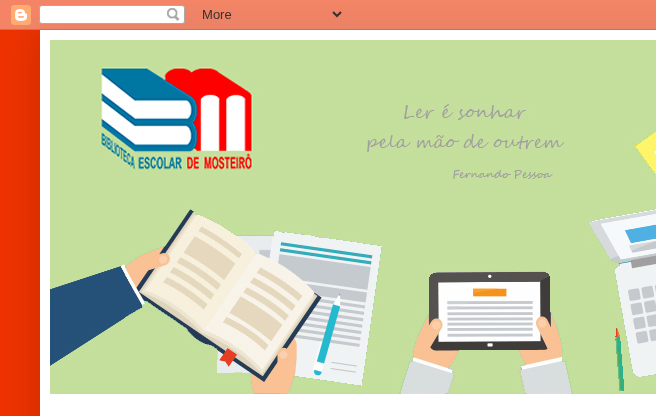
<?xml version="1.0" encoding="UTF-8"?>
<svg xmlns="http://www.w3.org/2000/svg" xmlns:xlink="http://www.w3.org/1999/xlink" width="656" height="416">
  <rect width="100%" height="100%" fill="#ee3300" />
  <rect x="40" y="30" width="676" height="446" fill="#000000" fill-opacity="0.15" filter="blur(20px)" />
  <rect x="40" y="30" width="616" height="386" fill="#ffffff" />
  <image x="50" y="40" width="606" height="354" xlink:href="image1.png" />
  <image x="0" y="0" width="656" height="30" xlink:href="image2.png" />
</svg>
